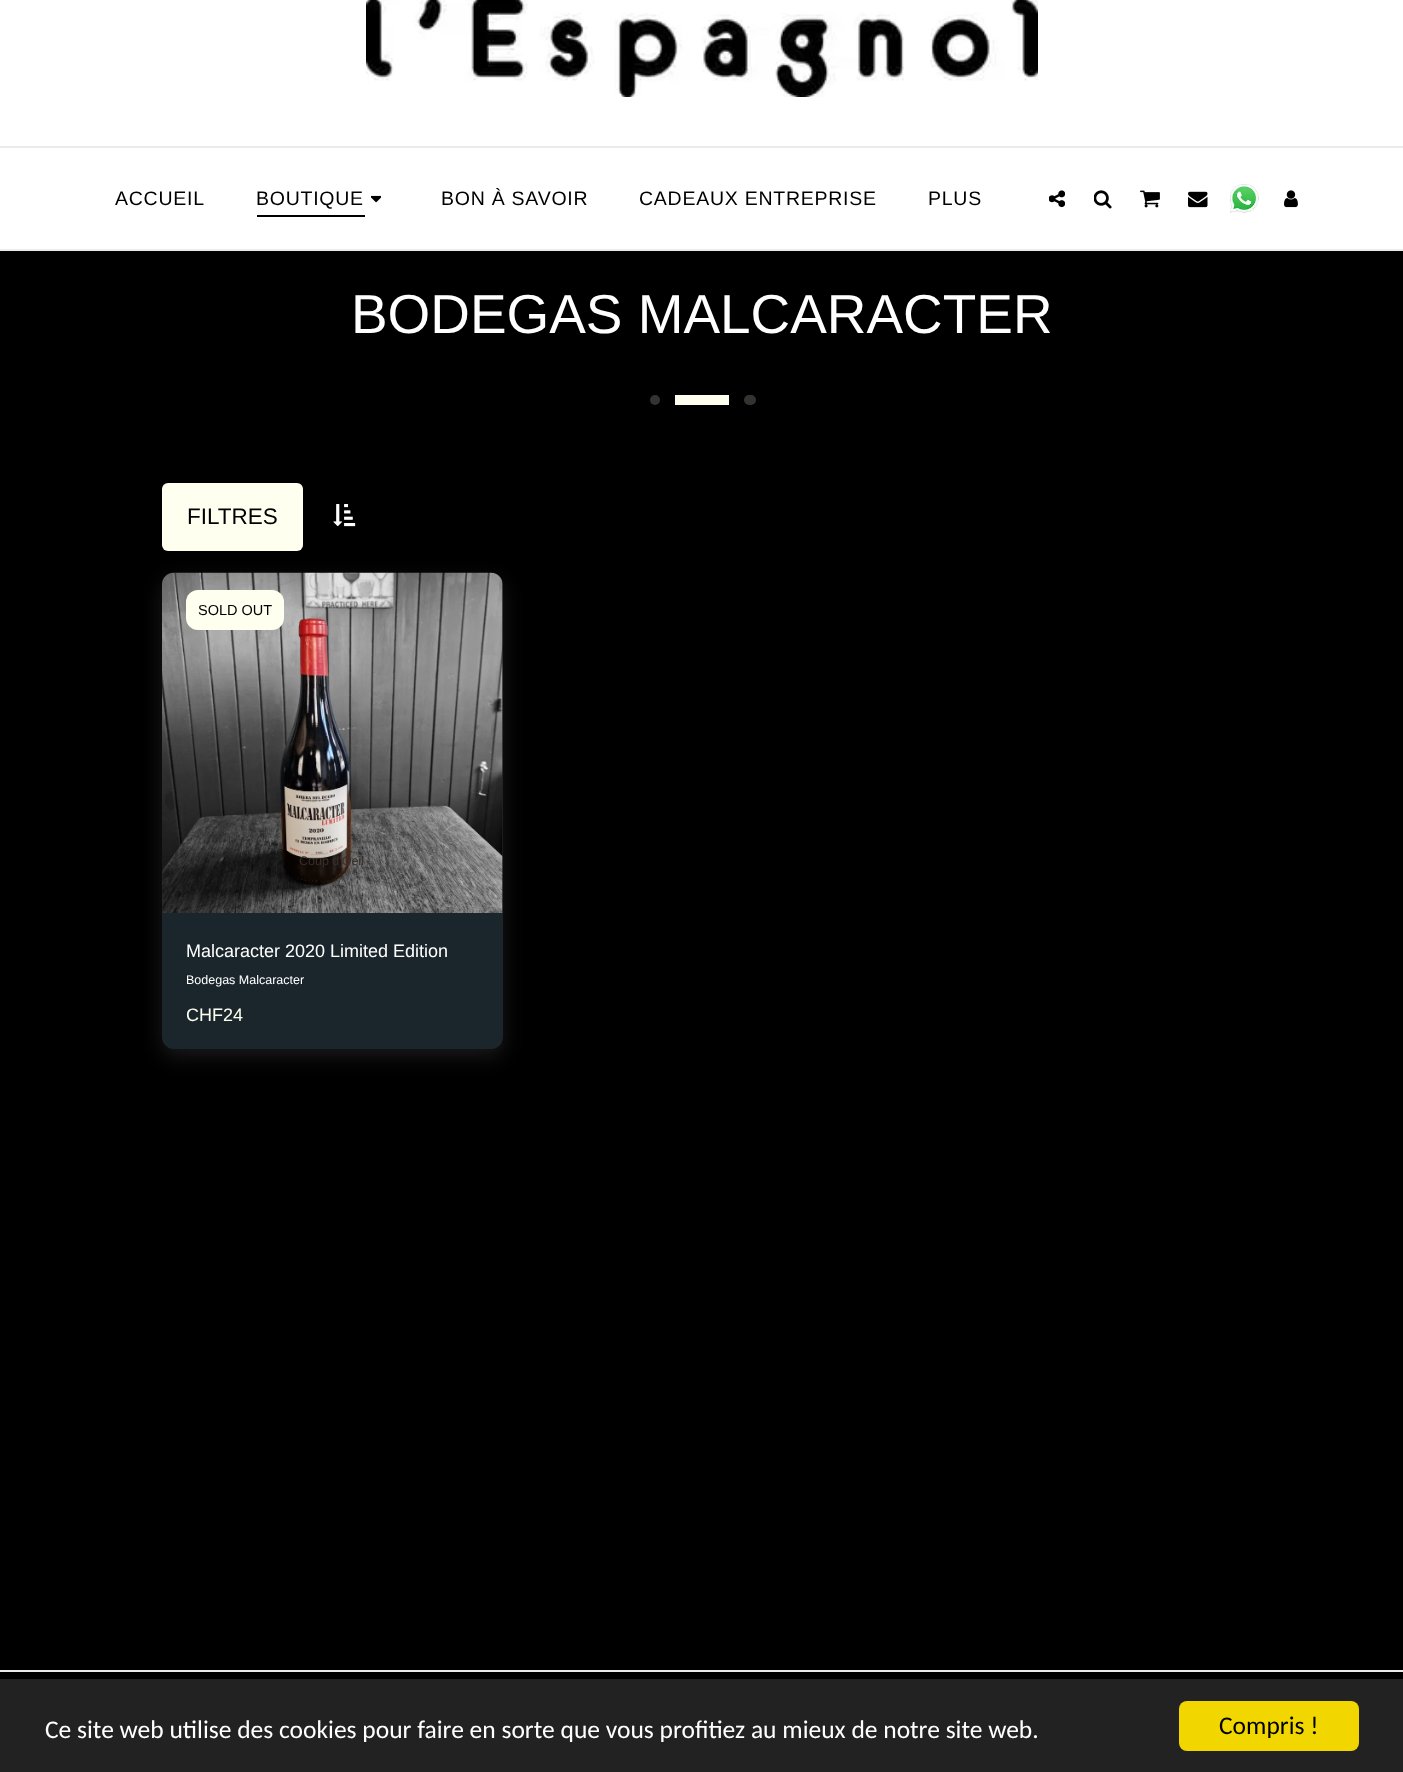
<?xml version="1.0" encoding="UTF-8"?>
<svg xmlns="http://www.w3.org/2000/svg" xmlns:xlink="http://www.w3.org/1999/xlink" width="1403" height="1772">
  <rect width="100%" height="100%" fill="#000000" />
  <rect y="249" width="1403" height="2" fill="#ebebeb" />
  <rect width="1403" height="146" fill="#ffffff" />
  <image x="366" y="0" width="672" height="97" xlink:href="image1.png" />
  <rect y="148" width="1403" height="101" fill="#ffffff" />
  <rect y="146" width="1403" height="2" fill="#ebebeb" />
  <rect x="257" y="215" width="108" height="2" fill="#000000" />
  <image x="371" y="195" width="10" height="8" xlink:href="image2.png" />
  <image x="1049" y="190" width="16" height="18" xlink:href="image3.png" />
  <image x="1094" y="190" width="18" height="19" xlink:href="image4.png" />
  <image x="1140" y="190" width="20" height="18" xlink:href="image5.png" />
  <image x="1188" y="191" width="20" height="17" xlink:href="image6.png" />
  <image x="1230" y="184" width="29" height="29" xlink:href="image7.png" />
  <image x="1284" y="190" width="14" height="18" xlink:href="image8.png" />
  <circle cx="655" cy="400" r="5" fill="#333330" />
  <rect x="675" y="395" width="54" height="10" fill="#fffff0" />
  <rect x="744" y="395" width="12" height="10" rx="5" fill="#333330" />
  <rect x="162" y="483" width="141" height="68" rx="6" fill="#fffff0" />
  <image x="333" y="504" width="23" height="23" xlink:href="image9.png" />
  <rect x="162" y="581" width="341" height="475" rx="12" fill="#818181" fill-opacity="0.2" filter="blur(10px)" />
  <rect x="162" y="573" width="341" height="476" rx="12" fill="#1b262c" />
  <image x="162" y="572" width="341" height="341" xlink:href="image10.png" />
  <rect x="186" y="590" width="98" height="40" rx="12" fill="#fffff0" />
  <rect y="1670" width="1403" height="2" fill="#ebebeb" />
  <rect y="1679" width="1403" height="93" fill="#222222" />
  <rect x="1179" y="1701" width="180" height="50" rx="8" fill="#f1d600" />
  <text x="115" y="205" style="font-family: Liberation Sans; font-size: 19.5px; letter-spacing: 0.75px; fill: #000000">ACCUEIL</text>
  <text x="256" y="205" style="font-family: Liberation Sans; font-size: 19.5px; letter-spacing: 0.75px; fill: #000000">BOUTIQUE</text>
  <text x="441" y="205" style="font-family: Liberation Sans; font-size: 19.5px; letter-spacing: 0.75px; fill: #000000">BON À SAVOIR</text>
  <text x="639" y="205" style="font-family: Liberation Sans; font-size: 19.5px; letter-spacing: 0.75px; fill: #000000">CADEAUX ENTREPRISE</text>
  <text x="928" y="205" style="font-family: Liberation Sans; font-size: 19.5px; letter-spacing: 0.75px; fill: #000000">PLUS</text>
  <text x="351" y="333" style="font-family: Liberation Sans; font-size: 54.9px; fill: #ffffff">BODEGAS MALCARACTER</text>
  <text x="187" y="524" style="font-family: Liberation Sans; font-size: 22.5px; fill: #000000">FILTRES</text>
  <text x="198" y="615" style="font-family: Liberation Sans; font-size: 14.5px; fill: #000000">SOLD OUT</text>
  <text x="299" y="865" style="font-family: Liberation Sans; font-size: 12.5px; fill: #372f2b">Coup d'Oeil</text>
  <text x="186" y="957" style="font-family: Liberation Sans; font-size: 18px; fill: #ffffff">Malcaracter 2020 Limited Edition</text>
  <text x="186" y="984" style="font-family: Liberation Sans; font-size: 12.5px; fill: #ffffff">Bodegas Malcaracter</text>
  <text x="186" y="1021" style="font-family: Liberation Sans; font-size: 18px; fill: #fffff0">CHF24</text>
  <text x="45" y="1738" style="font-family: Carlito; font-size: 25.5px; fill: #ffffff">Ce site web utilise des cookies pour faire en sorte que vous profitiez au mieux de notre site web.</text>
  <text x="1219" y="1734" style="font-family: Carlito; font-size: 25.5px; fill: #000000">Compris !</text>
</svg>
